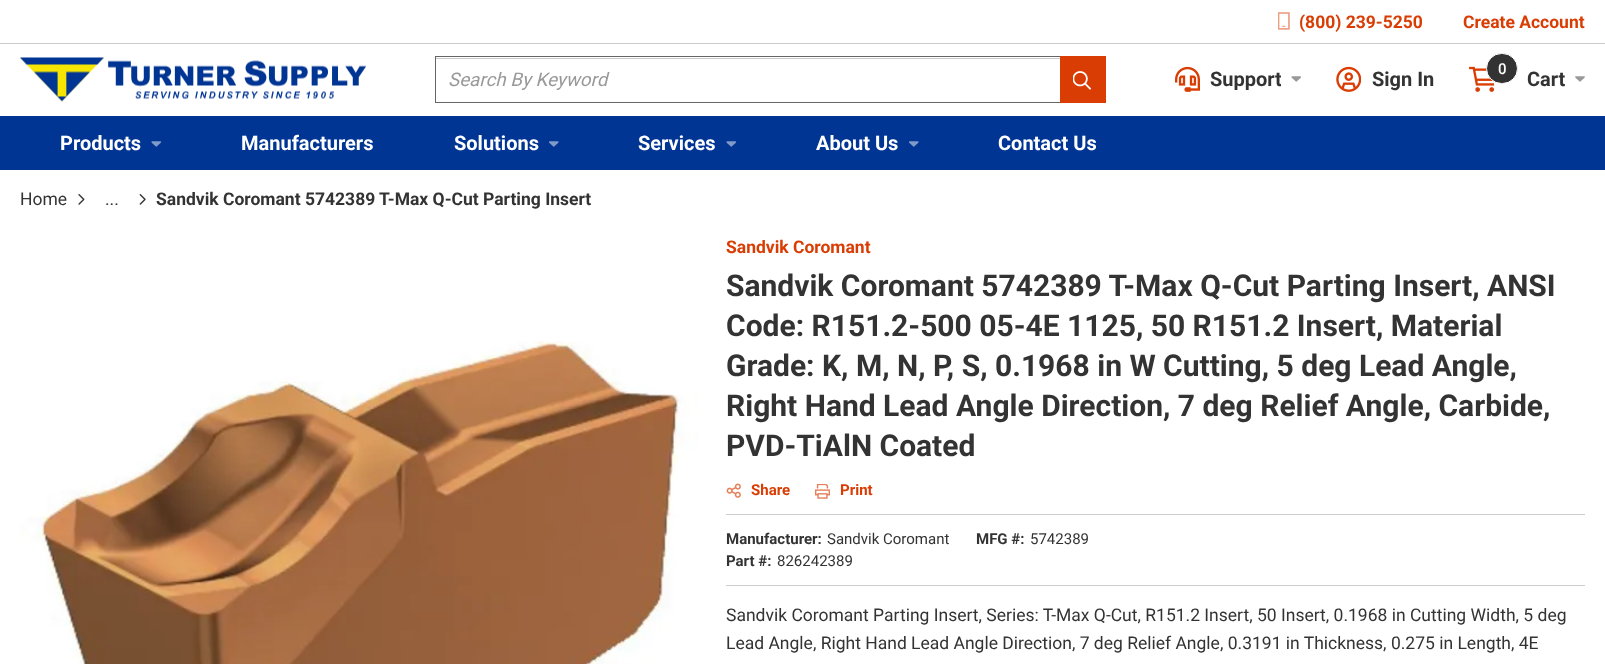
<?xml version="1.0" encoding="UTF-8"?>
<svg xmlns="http://www.w3.org/2000/svg" xmlns:xlink="http://www.w3.org/1999/xlink" width="1605" height="664">
  <defs>
    <clipPath id="clip1"><rect x="1210" y="69" width="71" height="21" /></clipPath>
  </defs>
  <rect width="100%" height="100%" fill="#ffffff" />
  <rect y="43" width="1605" height="1" fill="#cccccc" />
  <image x="1278" y="12" width="12" height="18" xlink:href="image1.png" />
  <image x="20" y="57" width="346" height="45" xlink:href="image2.png" />
  <rect x="436" y="58" width="624" height="1" fill="#cccccc" />
  <rect x="435.5" y="56.5" width="670" height="46" fill="none" stroke="#666666" />
  <rect x="1060" y="56" width="46" height="47" fill="#d93d04" />
  <image x="1073" y="71" width="18" height="19" xlink:href="image3.png" />
  <image x="1175" y="66" width="25" height="26" xlink:href="image4.png" />
  <image x="1291" y="76" width="10" height="6" xlink:href="image5.png" />
  <image x="1336" y="66" width="25" height="26" xlink:href="image6.png" />
  <image x="1469" y="66" width="26" height="26" xlink:href="image7.png" />
  <rect x="1486.5" y="53.5" width="31" height="30" rx="15" fill="#333333" stroke="#ffffff" />
  <image x="1575" y="76" width="10" height="6" xlink:href="image8.png" />
  <rect y="116" width="1605" height="54" fill="#003594" />
  <image x="151" y="141" width="10" height="6" xlink:href="image9.png" />
  <image x="549" y="141" width="10" height="6" xlink:href="image10.png" />
  <image x="726" y="141" width="10" height="6" xlink:href="image9.png" />
  <image x="909" y="141" width="10" height="6" xlink:href="image10.png" />
  <image x="78" y="194" width="7" height="11" xlink:href="image11.png" />
  <image x="139" y="194" width="7" height="11" xlink:href="image12.png" />
  <image x="20" y="341" width="678" height="323" xlink:href="image13.png" />
  <image x="726" y="483" width="15" height="15" xlink:href="image14.png" />
  <image x="815" y="484" width="15" height="15" xlink:href="image15.png" />
  <rect x="726" y="514" width="859" height="1" fill="#cccccc" />
  <rect x="726" y="585" width="859" height="1" fill="#cccccc" />
  <text x="1299" y="28" style="font-family: Roboto; font-size: 17.5px; font-weight: bold; fill: #d93d04">(800) 239-5250</text>
  <text x="1463" y="28" style="font-family: Roboto; font-size: 17.5px; font-weight: bold; fill: #d93d04">Create Account</text>
  <text x="448" y="86" style="font-family: Roboto; font-size: 18.75px; font-style: italic; fill: #999999">Search By Keyword</text>
  <g clip-path="url(#clip1)">
    <text x="1210" y="86" style="font-family: Roboto; font-size: 20px; font-weight: bold; fill: #333333">Support</text>
  </g>
  <text x="1372" y="86" style="font-family: Roboto; font-size: 20px; font-weight: bold; fill: #333333">Sign In</text>
  <text x="1498" y="74" style="font-family: Roboto; font-size: 15px; font-weight: 500; fill: #ffffff">0</text>
  <text x="1527" y="86" style="font-family: Roboto; font-size: 20px; font-weight: bold; fill: #333333">Cart</text>
  <text x="60" y="150" style="font-family: Roboto; font-size: 20px; font-weight: bold; fill: #ffffff">Products</text>
  <text x="241" y="150" style="font-family: Roboto; font-size: 20px; font-weight: bold; fill: #ffffff">Manufacturers</text>
  <text x="454" y="150" style="font-family: Roboto; font-size: 20px; font-weight: bold; fill: #ffffff">Solutions</text>
  <text x="638" y="150" style="font-family: Roboto; font-size: 20px; font-weight: bold; fill: #ffffff">Services</text>
  <text x="816" y="150" style="font-family: Roboto; font-size: 20px; font-weight: bold; fill: #ffffff">About Us</text>
  <text x="998" y="150" style="font-family: Roboto; font-size: 20px; font-weight: bold; fill: #ffffff">Contact Us</text>
  <text x="20" y="205" style="font-family: Roboto; font-size: 17.5px; fill: #333333">Home</text>
  <text x="105" y="205" style="font-family: Roboto; font-size: 17.5px; fill: #333333">...</text>
  <text x="156" y="205" style="font-family: Roboto; font-size: 17.5px; font-weight: bold; fill: #333333">Sandvik Coromant 5742389 T-Max Q-Cut Parting Insert</text>
  <text x="726" y="253" style="font-family: Roboto; font-size: 17.5px; font-weight: bold; fill: #d93d04">Sandvik Coromant</text>
  <text x="726" y="296" style="font-family: Roboto; font-size: 30px; font-weight: bold; fill: #333333">Sandvik Coromant 5742389 T-Max Q-Cut Parting Insert, ANSI</text>
  <text x="726" y="336" style="font-family: Roboto; font-size: 30px; font-weight: bold; fill: #333333">Code: R151.2-500 05-4E 1125, 50 R151.2 Insert, Material</text>
  <text x="726" y="376" style="font-family: Roboto; font-size: 30px; font-weight: bold; fill: #333333">Grade: K, M, N, P, S, 0.1968 in W Cutting, 5 deg Lead Angle,</text>
  <text x="726" y="416" style="font-family: Roboto; font-size: 30px; font-weight: bold; fill: #333333">Right Hand Lead Angle Direction, 7 deg Relief Angle, Carbide,</text>
  <text x="726" y="456" style="font-family: Roboto; font-size: 30px; font-weight: bold; fill: #333333">PVD-TiAlN Coated</text>
  <text x="751" y="495" style="font-family: Roboto; font-size: 15px; font-weight: bold; fill: #d93d04">Share</text>
  <text x="840" y="495" style="font-family: Roboto; font-size: 15px; font-weight: bold; fill: #d93d04">Print</text>
  <text x="726" y="544" style="font-family: Roboto; font-size: 15px; font-weight: bold; fill: #333333">Manufacturer:</text>
  <text x="827" y="544" style="font-family: Roboto; font-size: 15px; fill: #333333">Sandvik Coromant</text>
  <text x="726" y="566" style="font-family: Roboto; font-size: 15px; font-weight: bold; fill: #333333">Part #:</text>
  <text x="777" y="566" style="font-family: Roboto; font-size: 15px; fill: #333333">826242389</text>
  <text x="976" y="544" style="font-family: Roboto; font-size: 15px; font-weight: bold; fill: #333333">MFG #:</text>
  <text x="1030" y="544" style="font-family: Roboto; font-size: 15px; fill: #333333">5742389</text>
  <text x="726" y="621" style="font-family: Roboto; font-size: 17.5px; fill: #333333">Sandvik Coromant Parting Insert, Series: T-Max Q-Cut, R151.2 Insert, 50 Insert, 0.1968 in Cutting Width, 5 deg</text>
  <text x="726" y="649" style="font-family: Roboto; font-size: 17.5px; fill: #333333">Lead Angle, Right Hand Lead Angle Direction, 7 deg Relief Angle, 0.3191 in Thickness, 0.275 in Length, 4E</text>
</svg>
